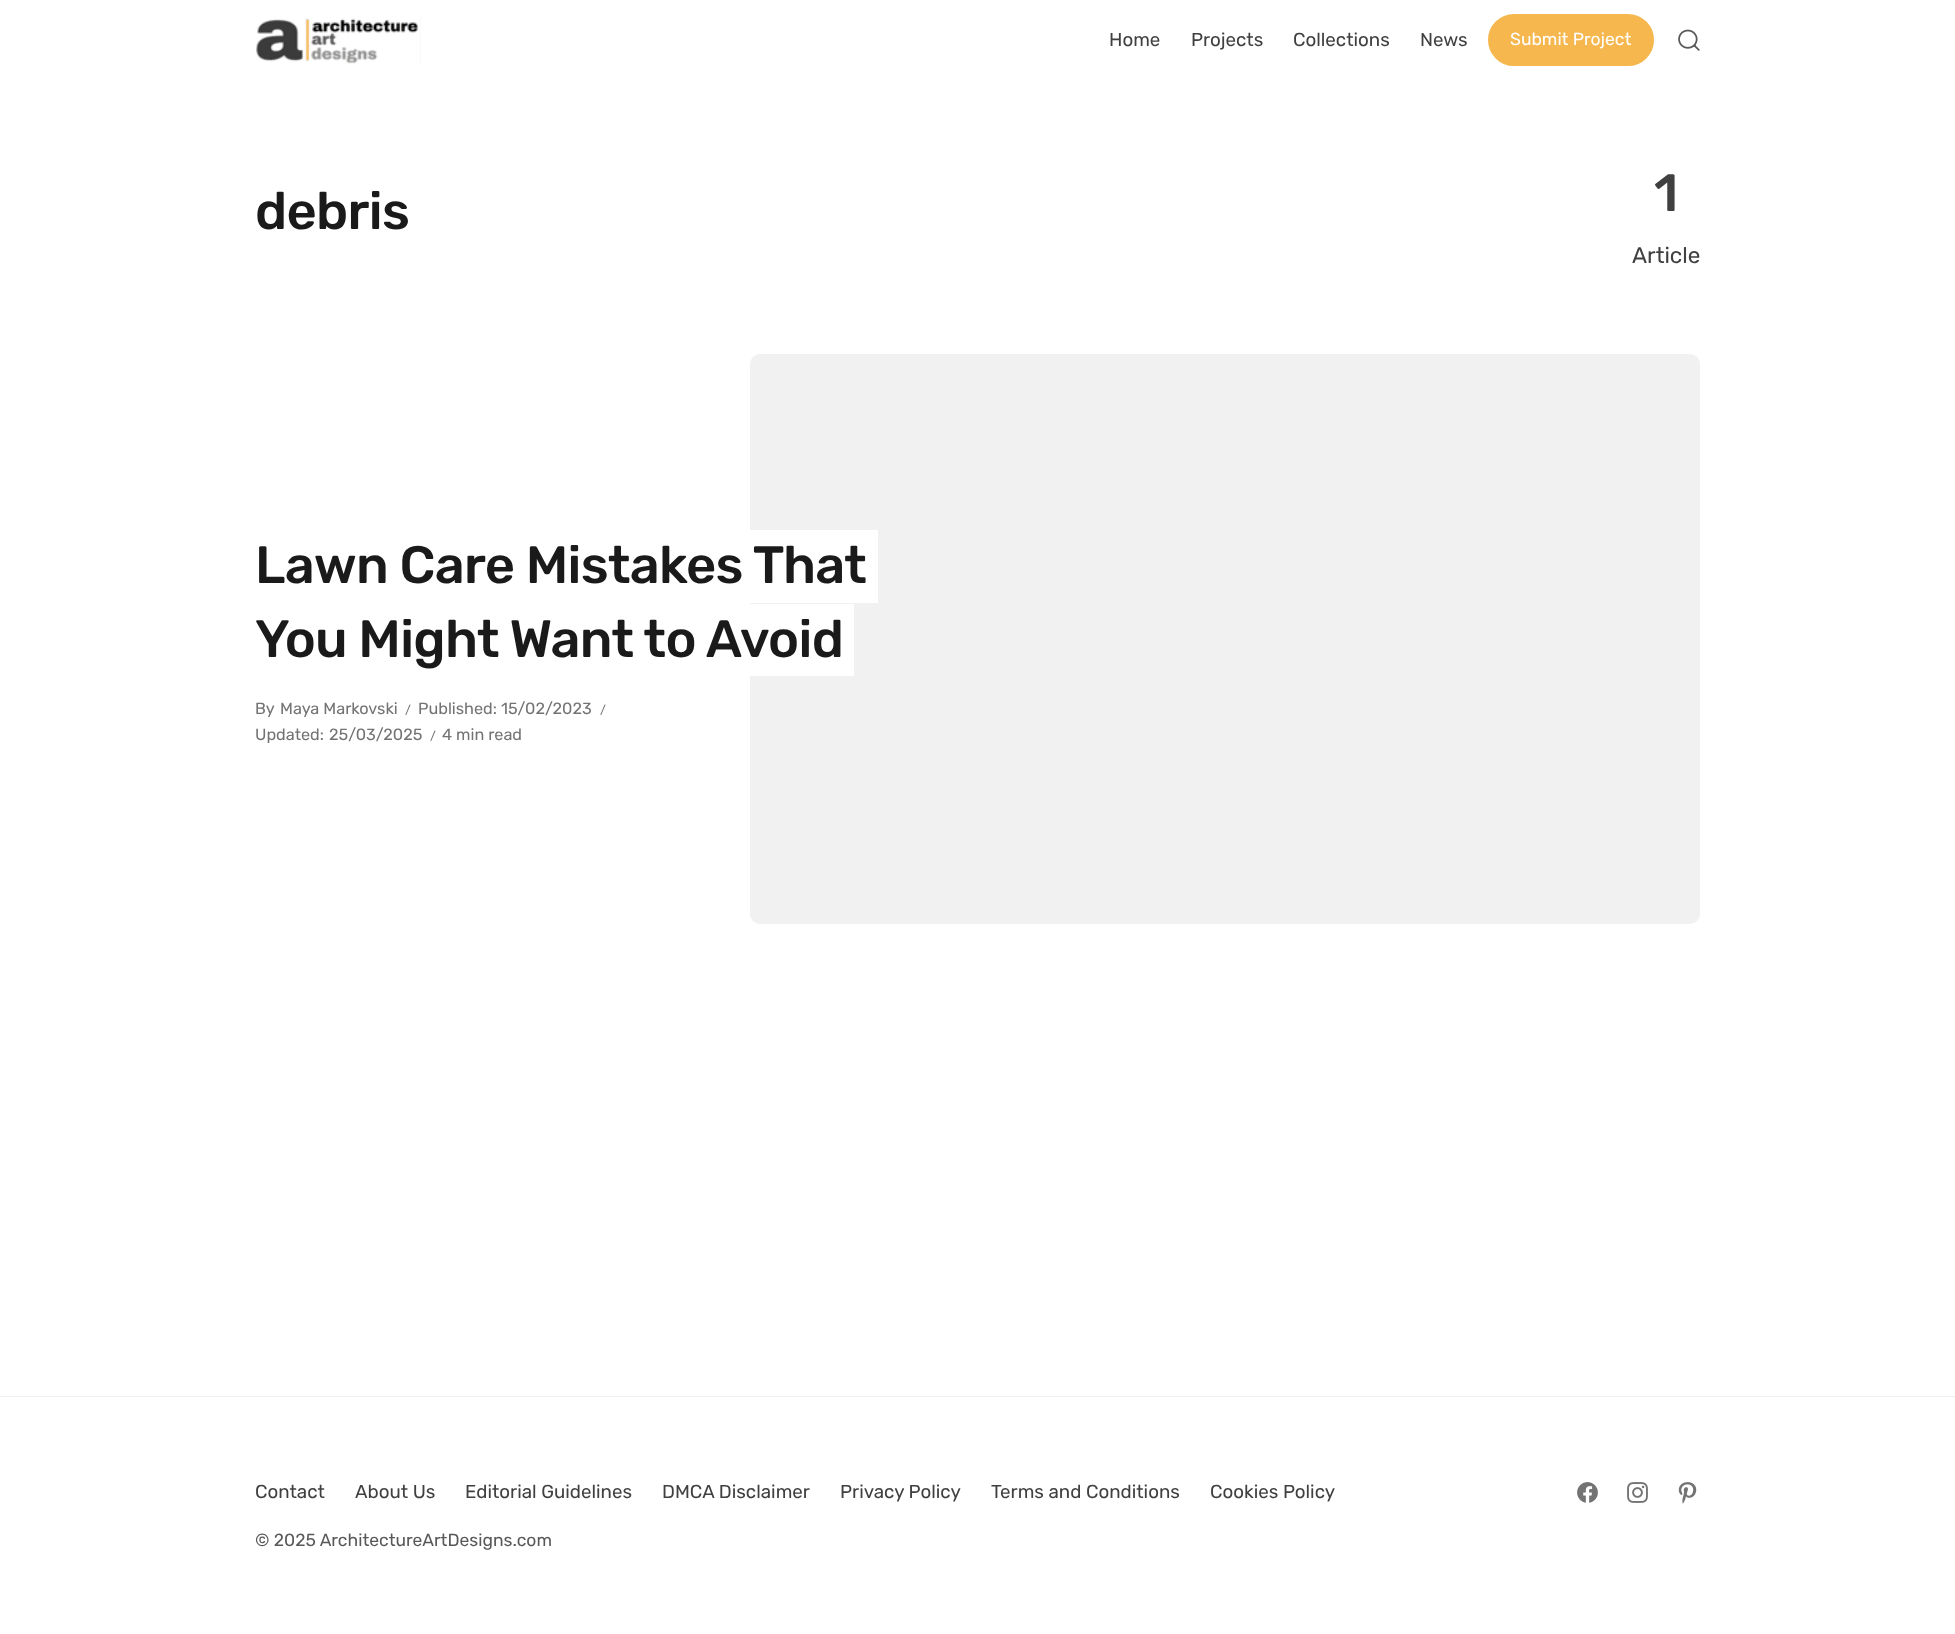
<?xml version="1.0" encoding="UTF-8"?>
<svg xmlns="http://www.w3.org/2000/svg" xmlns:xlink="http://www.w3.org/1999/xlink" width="1955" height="1634">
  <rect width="100%" height="100%" fill="#ffffff" />
  <image x="256" y="15" width="165" height="50" xlink:href="image1.png" />
  <rect x="1489.5" y="15.5" width="163" height="49" rx="24.5" fill="#f5b74e" stroke="#f5b74e" stroke-width="3" />
  <image x="1678" y="29" width="22" height="22" xlink:href="image2.png" />
  <rect x="750" y="354" width="950" height="570" rx="10" fill="#f1f1f1" />
  <path d="M 265 530 v 5 h 603 v 58 h 10 v -63 z" fill="#ffffff" />
  <path d="M 265 598 v 5 h 613 v -63 h -10 v 58 z" fill="#ffffff" />
  <rect x="750" y="535" width="118" height="63" fill="#ffffff" />
  <path d="M 265 604 v 5 h 579 v 57 h 10 v -62 z" fill="#ffffff" />
  <path d="M 265 671 v 5 h 589 v -62 h -10 v 57 z" fill="#ffffff" />
  <rect x="750" y="609" width="94" height="62" fill="#ffffff" />
  <rect y="1396" width="1955" height="1" fill="#f0f0f0" />
  <image x="1577" y="1482" width="21" height="21" xlink:href="image3.png" />
  <image x="1627" y="1482" width="21" height="21" xlink:href="image4.png" />
  <image x="1678" y="1482" width="19" height="22" xlink:href="image5.png" />
  <text x="1109" y="46" style="font-family: Rubik; font-size: 18.75px; fill: #404040">Home</text>
  <text x="1191" y="46" style="font-family: Rubik; font-size: 18.75px; fill: #404040">Projects</text>
  <text x="1293" y="46" style="font-family: Rubik; font-size: 18.75px; fill: #404040">Collections</text>
  <text x="1420" y="46" style="font-family: Rubik; font-size: 18.75px; fill: #404040">News</text>
  <text x="1510" y="45" style="font-family: Rubik; font-size: 17.5px; fill: #ffffff">Submit Project</text>
  <text x="255" y="229" style="font-family: Rubik; font-size: 52.5px; font-weight: 500; letter-spacing: -0.7px; fill: #1a1a1a">debris</text>
  <text x="1654" y="211" style="font-family: Rubik; font-size: 52.5px; font-weight: 500; fill: #404040">1</text>
  <text x="1632" y="263" style="font-family: Rubik; font-size: 22.5px; fill: #404040">Article</text>
  <text x="255" y="583" style="font-family: Rubik; font-size: 52.5px; font-weight: 500; letter-spacing: -0.7px; fill: #1a1a1a">Lawn Care Mistakes That</text>
  <text x="255" y="657" style="font-family: Rubik; font-size: 52.5px; font-weight: 500; letter-spacing: -0.7px; fill: #1a1a1a">You Might Want to Avoid</text>
  <text x="255" y="714" style="font-family: Rubik; font-size: 16.25px; fill: #737373">By</text>
  <text x="280" y="714" style="font-family: Rubik; font-size: 16.25px; fill: #737373">Maya Markovski</text>
  <text x="405" y="714" style="font-family: Rubik; font-size: 12px; fill: #737373">/</text>
  <text x="418" y="714" style="font-family: Rubik; font-size: 16.25px; fill: #737373">Published:</text>
  <text x="501" y="714" style="font-family: Rubik; font-size: 16.25px; fill: #737373">15/02/2023</text>
  <text x="600" y="714" style="font-family: Rubik; font-size: 12px; fill: #737373">/</text>
  <text x="255" y="740" style="font-family: Rubik; font-size: 16.25px; fill: #737373">Updated:</text>
  <text x="329" y="740" style="font-family: Rubik; font-size: 16.25px; fill: #737373">25/03/2025</text>
  <text x="430" y="740" style="font-family: Rubik; font-size: 12px; fill: #737373">/</text>
  <text x="442" y="740" style="font-family: Rubik; font-size: 16.25px; fill: #737373">4 min read</text>
  <text x="255" y="1498" style="font-family: Rubik; font-size: 18.75px; fill: #404040">Contact</text>
  <text x="355" y="1498" style="font-family: Rubik; font-size: 18.75px; fill: #404040">About Us</text>
  <text x="465" y="1498" style="font-family: Rubik; font-size: 18.75px; fill: #404040">Editorial Guidelines</text>
  <text x="662" y="1498" style="font-family: Rubik; font-size: 18.75px; fill: #404040">DMCA Disclaimer</text>
  <text x="840" y="1498" style="font-family: Rubik; font-size: 18.75px; fill: #404040">Privacy Policy</text>
  <text x="991" y="1498" style="font-family: Rubik; font-size: 18.75px; fill: #404040">Terms and Conditions</text>
  <text x="1210" y="1498" style="font-family: Rubik; font-size: 18.75px; fill: #404040">Cookies Policy</text>
  <text x="255" y="1546" style="font-family: Rubik; font-size: 17.5px; fill: #595959">© 2025 ArchitectureArtDesigns.com</text>
</svg>
